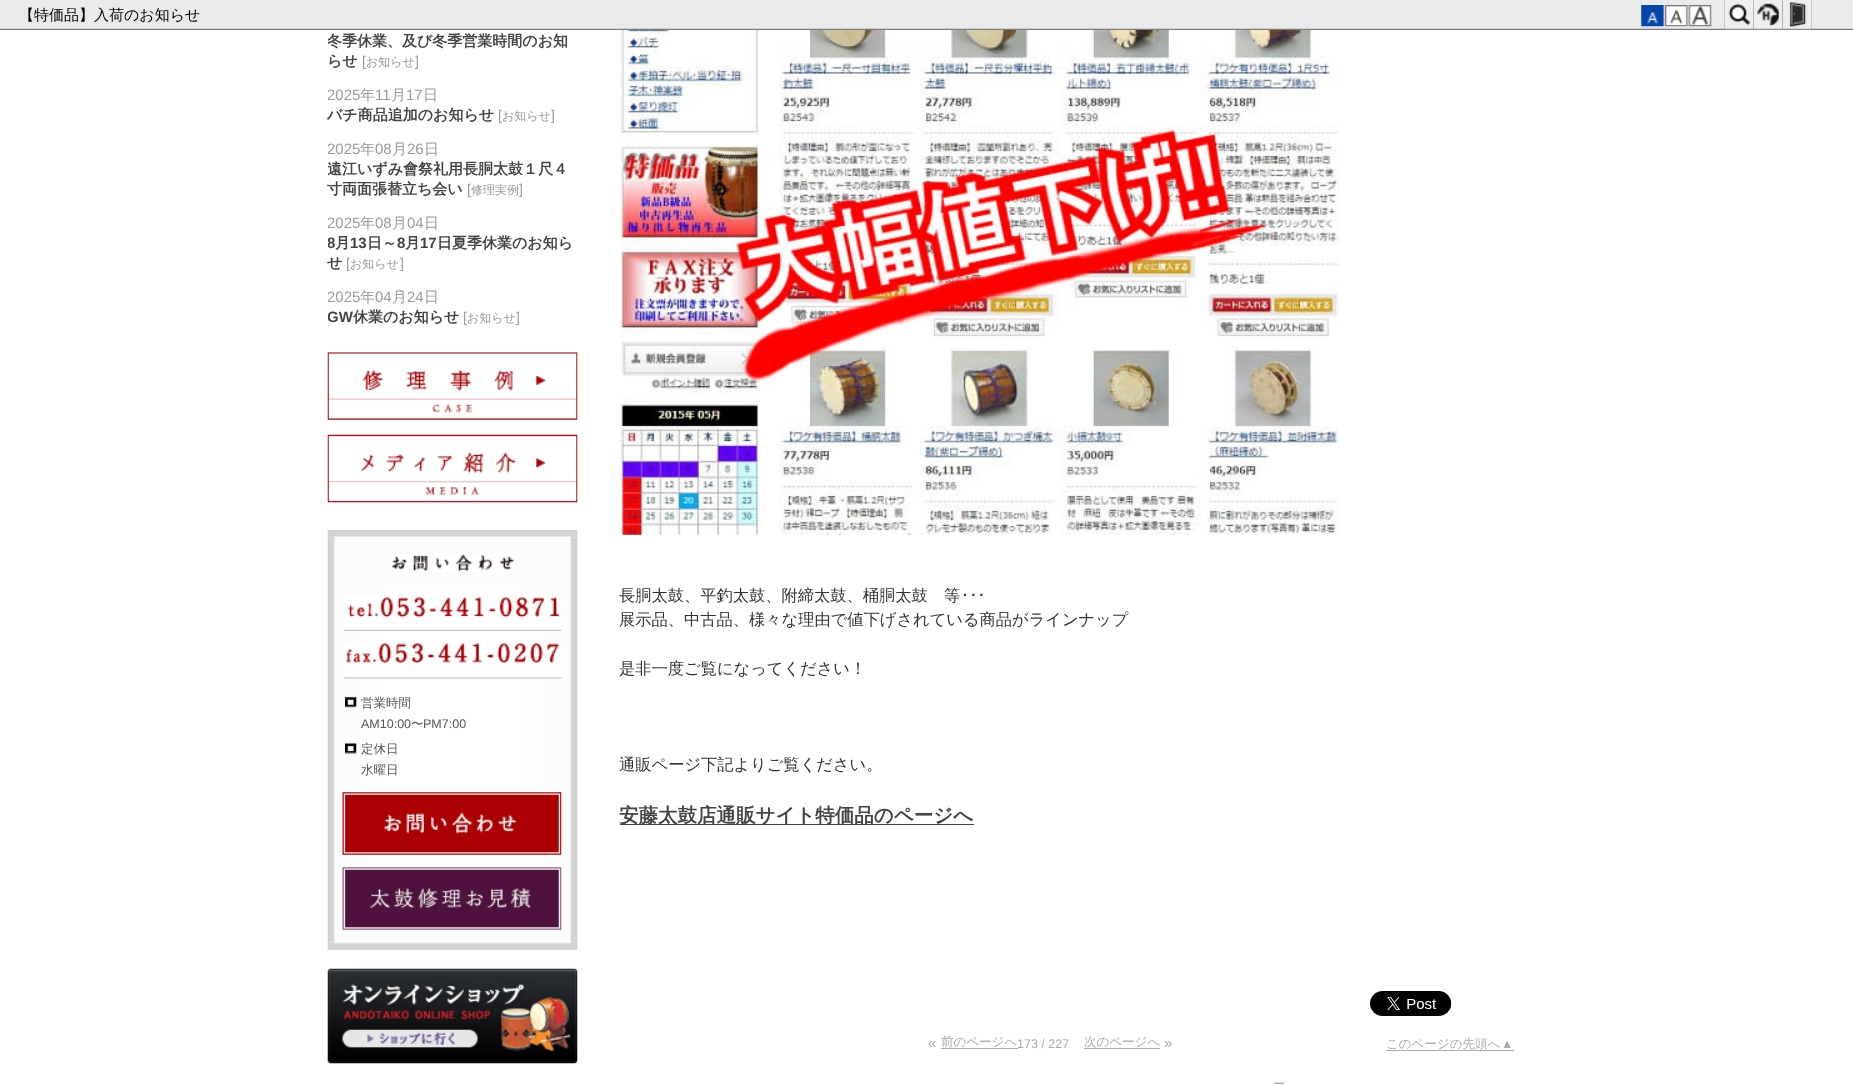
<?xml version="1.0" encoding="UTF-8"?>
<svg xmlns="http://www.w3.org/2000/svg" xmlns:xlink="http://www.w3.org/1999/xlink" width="1853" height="1085">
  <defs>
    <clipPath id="clip1"><rect x="328" width="250" height="340" /></clipPath>
  </defs>
  <rect width="100%" height="100%" fill="#ffffff" />
  <image x="0" y="0" width="1853" height="30" xlink:href="image1.png" />
  <image x="1641" y="5" width="24" height="22" xlink:href="image2.png" />
  <image x="1665" y="5" width="23" height="22" xlink:href="image3.png" />
  <image x="1688" y="5" width="24" height="22" xlink:href="image4.png" />
  <image x="1724" y="0" width="30" height="30" xlink:href="image5.png" />
  <image x="1725" y="0" width="29" height="29" xlink:href="image6.png" />
  <image x="1753" y="0" width="30" height="30" xlink:href="image7.png" />
  <image x="1753" y="0" width="30" height="29" xlink:href="image8.png" />
  <image x="1782" y="0" width="30" height="30" xlink:href="image9.png" />
  <image x="1782" y="0" width="30" height="29" xlink:href="image10.png" />
  <image x="327" y="352" width="251" height="68" xlink:href="image11.png" />
  <image x="327" y="434" width="251" height="69" xlink:href="image12.png" />
  <image x="327" y="530" width="251" height="420" xlink:href="image13.png" />
  <image x="391" y="554" width="123" height="18" xlink:href="image14.png" />
  <image x="343" y="597" width="219" height="34" xlink:href="image15.png" />
  <image x="343" y="643" width="219" height="36" xlink:href="image16.png" />
  <image x="345" y="697" width="12" height="11" xlink:href="image17.png" />
  <image x="345" y="743" width="12" height="11" xlink:href="image18.png" />
  <image x="342" y="792" width="220" height="63" xlink:href="image19.png" />
  <image x="342" y="867" width="220" height="63" xlink:href="image20.png" />
  <image x="327" y="968" width="251" height="96" xlink:href="image21.png" />
  <image x="620" y="30" width="720" height="505" xlink:href="image22.png" />
  <rect x="620" y="824" width="354" height="1" fill="#444444" />
  <image x="1370" y="991" width="82" height="25" xlink:href="image23.png" />
  <rect x="941" y="1048" width="77" height="1" fill="#aaaaaa" />
  <rect x="1084" y="1048" width="76" height="1" fill="#aaaaaa" />
  <rect x="1386" y="1050" width="128" height="1" fill="#aaaaaa" />
  <text x="19" y="20" style="font-family: WenQuanYi Zen Hei; font-size: 15px; font-weight: 500; fill: #000000">【特価品】入荷のお知らせ</text>
  <g clip-path="url(#clip1)">
    <text x="327" y="46" style="font-family: WenQuanYi Zen Hei; font-size: 15px; font-weight: bold; fill: #444444">冬季休業、及び冬季営業時間のお知</text>
  </g>
  <text x="327" y="66" style="font-family: WenQuanYi Zen Hei; font-size: 15px; font-weight: bold; fill: #444444">らせ</text>
  <text x="362" y="66" style="font-family: Liberation Sans; font-size: 14px; fill: #999999">[</text>
  <text x="366" y="66" style="font-family: WenQuanYi Zen Hei; font-size: 12px; font-weight: 500; fill: #999999">お知らせ</text>
  <text x="415" y="66" style="font-family: Liberation Sans; font-size: 14px; fill: #999999">]</text>
  <g clip-path="url(#clip1)">
    <text x="327" y="100" style="font-family: Liberation Sans; font-size: 15px; fill: #999999">2025</text>
  </g>
  <text x="360" y="100" style="font-family: WenQuanYi Zen Hei; font-size: 15px; font-weight: 500; fill: #999999">年</text>
  <text x="375" y="100" style="font-family: Liberation Sans; font-size: 15px; fill: #999999">11</text>
  <text x="391" y="100" style="font-family: WenQuanYi Zen Hei; font-size: 15px; font-weight: 500; fill: #999999">月</text>
  <text x="406" y="100" style="font-family: Liberation Sans; font-size: 15px; fill: #999999">17</text>
  <text x="423" y="100" style="font-family: WenQuanYi Zen Hei; font-size: 15px; font-weight: 500; fill: #999999">日</text>
  <text x="327" y="120" style="font-family: WenQuanYi Zen Hei; font-size: 15px; font-weight: bold; fill: #444444">バチ商品追加のお知らせ</text>
  <text x="498" y="120" style="font-family: Liberation Sans; font-size: 14px; fill: #999999">[</text>
  <text x="502" y="120" style="font-family: WenQuanYi Zen Hei; font-size: 12px; font-weight: 500; fill: #999999">お知らせ</text>
  <text x="551" y="120" style="font-family: Liberation Sans; font-size: 14px; fill: #999999">]</text>
  <g clip-path="url(#clip1)">
    <text x="327" y="154" style="font-family: Liberation Sans; font-size: 15px; fill: #999999">2025</text>
  </g>
  <text x="360" y="154" style="font-family: WenQuanYi Zen Hei; font-size: 15px; font-weight: 500; fill: #999999">年</text>
  <text x="375" y="154" style="font-family: Liberation Sans; font-size: 15px; fill: #999999">08</text>
  <text x="392" y="154" style="font-family: WenQuanYi Zen Hei; font-size: 15px; font-weight: 500; fill: #999999">月</text>
  <text x="407" y="154" style="font-family: Liberation Sans; font-size: 15px; fill: #999999">26</text>
  <text x="424" y="154" style="font-family: WenQuanYi Zen Hei; font-size: 15px; font-weight: 500; fill: #999999">日</text>
  <g clip-path="url(#clip1)">
    <text x="327" y="174" style="font-family: WenQuanYi Zen Hei; font-size: 15px; font-weight: bold; fill: #444444">遠江いずみ會祭礼用長胴太鼓１尺４</text>
  </g>
  <text x="327" y="194" style="font-family: WenQuanYi Zen Hei; font-size: 15px; font-weight: bold; fill: #444444">寸両面張替立ち会い</text>
  <text x="467" y="194" style="font-family: Liberation Sans; font-size: 14px; fill: #999999">[</text>
  <text x="471" y="194" style="font-family: WenQuanYi Zen Hei; font-size: 12px; font-weight: 500; fill: #999999">修理実例</text>
  <text x="519" y="194" style="font-family: Liberation Sans; font-size: 14px; fill: #999999">]</text>
  <g clip-path="url(#clip1)">
    <text x="327" y="228" style="font-family: Liberation Sans; font-size: 15px; fill: #999999">2025</text>
  </g>
  <text x="360" y="228" style="font-family: WenQuanYi Zen Hei; font-size: 15px; font-weight: 500; fill: #999999">年</text>
  <text x="375" y="228" style="font-family: Liberation Sans; font-size: 15px; fill: #999999">08</text>
  <text x="392" y="228" style="font-family: WenQuanYi Zen Hei; font-size: 15px; font-weight: 500; fill: #999999">月</text>
  <text x="407" y="228" style="font-family: Liberation Sans; font-size: 15px; fill: #999999">04</text>
  <text x="424" y="228" style="font-family: WenQuanYi Zen Hei; font-size: 15px; font-weight: 500; fill: #999999">日</text>
  <g clip-path="url(#clip1)">
    <text x="327" y="248" style="font-family: Liberation Sans; font-size: 15px; font-weight: bold; fill: #444444">8</text>
  </g>
  <text x="335" y="248" style="font-family: WenQuanYi Zen Hei; font-size: 15px; font-weight: bold; fill: #444444">月</text>
  <text x="350" y="248" style="font-family: Liberation Sans; font-size: 15px; font-weight: bold; fill: #444444">13</text>
  <text x="367" y="248" style="font-family: WenQuanYi Zen Hei; font-size: 15px; font-weight: bold; fill: #444444">日～</text>
  <text x="397" y="248" style="font-family: Liberation Sans; font-size: 15px; font-weight: bold; fill: #444444">8</text>
  <text x="405" y="248" style="font-family: WenQuanYi Zen Hei; font-size: 15px; font-weight: bold; fill: #444444">月</text>
  <text x="420" y="248" style="font-family: Liberation Sans; font-size: 15px; font-weight: bold; fill: #444444">17</text>
  <text x="437" y="248" style="font-family: WenQuanYi Zen Hei; font-size: 15px; font-weight: bold; fill: #444444">日夏季休業のお知ら</text>
  <text x="327" y="268" style="font-family: WenQuanYi Zen Hei; font-size: 15px; font-weight: bold; fill: #444444">せ</text>
  <text x="346" y="268" style="font-family: Liberation Sans; font-size: 14px; fill: #999999">[</text>
  <text x="350" y="268" style="font-family: WenQuanYi Zen Hei; font-size: 12px; font-weight: 500; fill: #999999">お知らせ</text>
  <text x="400" y="268" style="font-family: Liberation Sans; font-size: 14px; fill: #999999">]</text>
  <g clip-path="url(#clip1)">
    <text x="327" y="302" style="font-family: Liberation Sans; font-size: 15px; fill: #999999">2025</text>
  </g>
  <text x="360" y="302" style="font-family: WenQuanYi Zen Hei; font-size: 15px; font-weight: 500; fill: #999999">年</text>
  <text x="375" y="302" style="font-family: Liberation Sans; font-size: 15px; fill: #999999">04</text>
  <text x="392" y="302" style="font-family: WenQuanYi Zen Hei; font-size: 15px; font-weight: 500; fill: #999999">月</text>
  <text x="407" y="302" style="font-family: Liberation Sans; font-size: 15px; fill: #999999">24</text>
  <text x="424" y="302" style="font-family: WenQuanYi Zen Hei; font-size: 15px; font-weight: 500; fill: #999999">日</text>
  <g clip-path="url(#clip1)">
    <text x="327" y="322" style="font-family: Liberation Sans; font-size: 15px; font-weight: bold; fill: #444444">GW</text>
  </g>
  <text x="353" y="322" style="font-family: WenQuanYi Zen Hei; font-size: 15px; font-weight: bold; fill: #444444">休業のお知らせ</text>
  <text x="463" y="322" style="font-family: Liberation Sans; font-size: 14px; fill: #999999">[</text>
  <text x="467" y="322" style="font-family: WenQuanYi Zen Hei; font-size: 12px; font-weight: 500; fill: #999999">お知らせ</text>
  <text x="516" y="322" style="font-family: Liberation Sans; font-size: 14px; fill: #999999">]</text>
  <text x="361" y="707" style="font-family: WenQuanYi Zen Hei; font-size: 12.5px; font-weight: 500; fill: #555555">営業時間</text>
  <text x="361" y="728" style="font-family: Liberation Sans; font-size: 12.5px; fill: #555555">AM10:00</text>
  <text x="411" y="728" style="font-family: WenQuanYi Zen Hei; font-size: 12.5px; font-weight: 500; fill: #555555">〜</text>
  <text x="423" y="728" style="font-family: Liberation Sans; font-size: 12.5px; fill: #555555">PM7:00</text>
  <text x="361" y="753" style="font-family: WenQuanYi Zen Hei; font-size: 12.5px; font-weight: 500; fill: #555555">定休日</text>
  <text x="361" y="774" style="font-family: WenQuanYi Zen Hei; font-size: 12.5px; font-weight: 500; fill: #555555">水曜日</text>
  <text x="619" y="601" style="font-family: WenQuanYi Zen Hei; font-size: 16.25px; font-weight: 500; fill: #333333">長胴太鼓、平釣太鼓、附締太鼓、桶胴太鼓　等</text>
  <text x="961" y="601" style="font-family: IPAPGothic; font-size: 16.25px; fill: #333333">･･･</text>
  <text x="619" y="625" style="font-family: WenQuanYi Zen Hei; font-size: 16.25px; font-weight: 500; fill: #333333">展示品、中古品、様々な理由で値下げされている商品がラインナップ</text>
  <text x="619" y="674" style="font-family: WenQuanYi Zen Hei; font-size: 16.25px; font-weight: 500; fill: #333333">是非一度ご覧になってください！</text>
  <text x="619" y="770" style="font-family: WenQuanYi Zen Hei; font-size: 16.25px; font-weight: 500; fill: #333333">通販ページ下記よりご覧ください。</text>
  <text x="619" y="822" style="font-family: WenQuanYi Zen Hei; font-size: 19.5px; font-weight: bold; fill: #444444">安藤太鼓店通販サイト特価品のページへ</text>
  <text x="928" y="1048" style="font-family: Liberation Sans; font-size: 15px; fill: #aaaaaa">«</text>
  <text x="941" y="1046" style="font-family: WenQuanYi Zen Hei; font-size: 12.5px; font-weight: 500; fill: #aaaaaa">前のページへ</text>
  <text x="1017" y="1048" style="font-family: Liberation Sans; font-size: 12.5px; fill: #aaaaaa">173 / 227</text>
  <text x="1084" y="1046" style="font-family: WenQuanYi Zen Hei; font-size: 12.5px; font-weight: 500; fill: #aaaaaa">次のページへ</text>
  <text x="1164" y="1048" style="font-family: Liberation Sans; font-size: 15px; fill: #aaaaaa">»</text>
  <text x="1386" y="1048" style="font-family: WenQuanYi Zen Hei; font-size: 12.5px; font-weight: 500; fill: #aaaaaa">このページの先頭へ</text>
  <text x="1501" y="1048" style="font-family: Liberation Sans; font-size: 12.5px; fill: #aaaaaa">▲</text>
  <text x="1273" y="1088" style="font-family: WenQuanYi Zen Hei; font-size: 12.5px; font-weight: 500; fill: #aaaaaa">ー</text>
</svg>
